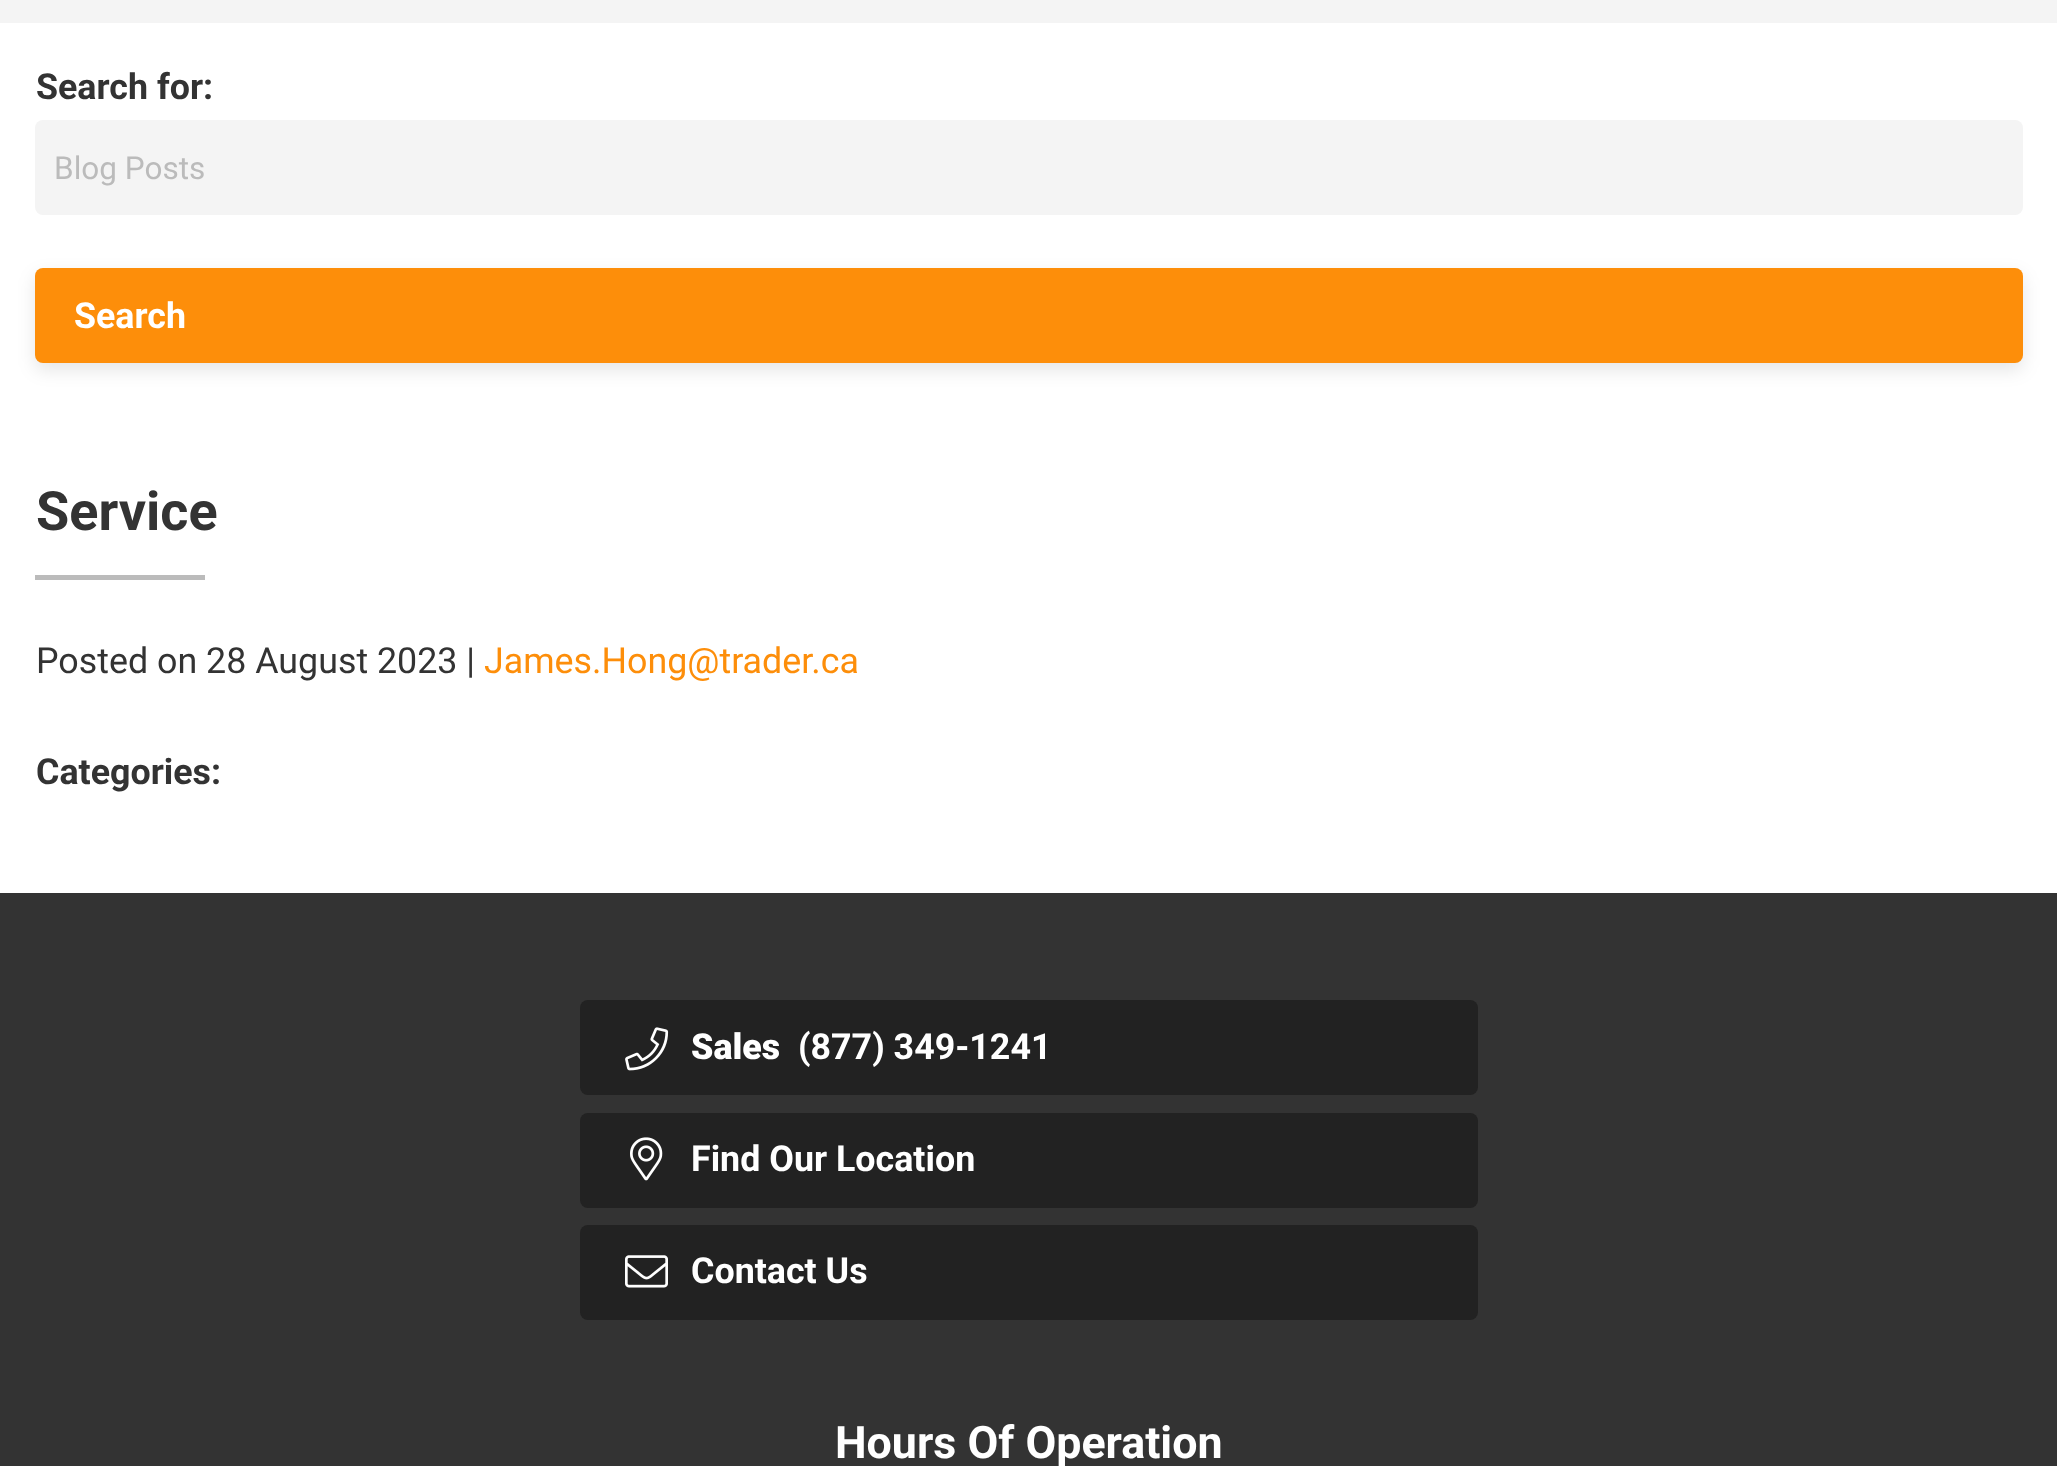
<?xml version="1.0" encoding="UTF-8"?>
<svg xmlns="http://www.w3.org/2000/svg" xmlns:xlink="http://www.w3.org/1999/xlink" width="2057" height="1466">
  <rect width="100%" height="100%" fill="#ffffff" />
  <rect width="2057" height="23" fill="#f4f4f4" />
  <rect x="35" y="120" width="1988" height="95" rx="8" fill="#f4f4f4" />
  <rect x="35" y="275" width="1988" height="95" rx="8" fill="#000000" fill-opacity="0.1" filter="blur(9px)" />
  <rect x="35" y="268" width="1988" height="95" rx="8" fill="#fd8e0a" />
  <rect x="35" y="575" width="170" height="5" fill="#bbbbbb" />
  <rect y="893" width="2057" height="573" fill="#333333" />
  <rect x="580" y="1000" width="898" height="95" rx="8" fill="#222222" />
  <image x="625" y="1027" width="44" height="44" xlink:href="image1.png" />
  <rect x="580" y="1113" width="898" height="95" rx="8" fill="#222222" />
  <image x="630" y="1137" width="33" height="44" xlink:href="image2.png" />
  <rect x="580" y="1225" width="898" height="95" rx="8" fill="#222222" />
  <image x="625" y="1255" width="43" height="33" xlink:href="image3.png" />
  <text x="36" y="99" style="font-family: Roboto; font-size: 35.8px; font-weight: bold; fill: #333333">Search for:</text>
  <text x="54" y="179" style="font-family: Roboto; font-size: 31.5px; fill: #bbbbbb">Blog Posts</text>
  <text x="74" y="328" style="font-family: Roboto; font-size: 35.8px; font-weight: bold; fill: #ffffff">Search</text>
  <text x="36" y="530" style="font-family: Roboto; font-size: 54px; font-weight: bold; fill: #333333">Service</text>
  <text x="36" y="673" style="font-family: Roboto; font-size: 35.8px; fill: #333333">Posted on 28 August 2023 |</text>
  <text x="484" y="673" style="font-family: Roboto; font-size: 35.8px; fill: #fd8e0a">James.Hong@trader.ca</text>
  <text x="36" y="784" style="font-family: Roboto; font-size: 35.8px; font-weight: bold; fill: #333333">Categories:</text>
  <text x="691" y="1059" style="font-family: Roboto; font-size: 35.8px; font-weight: 900; fill: #ffffff">Sales</text>
  <text x="798" y="1059" style="font-family: Roboto; font-size: 35.8px; font-weight: bold; fill: #ffffff">(877) 349-1241</text>
  <text x="691" y="1171" style="font-family: Roboto; font-size: 35.8px; font-weight: bold; fill: #ffffff">Find Our Location</text>
  <text x="691" y="1283" style="font-family: Roboto; font-size: 35.8px; font-weight: bold; fill: #ffffff">Contact Us</text>
  <text x="835" y="1458" style="font-family: Roboto; font-size: 44.75px; font-weight: bold; fill: #ffffff">Hours Of Operation</text>
</svg>
